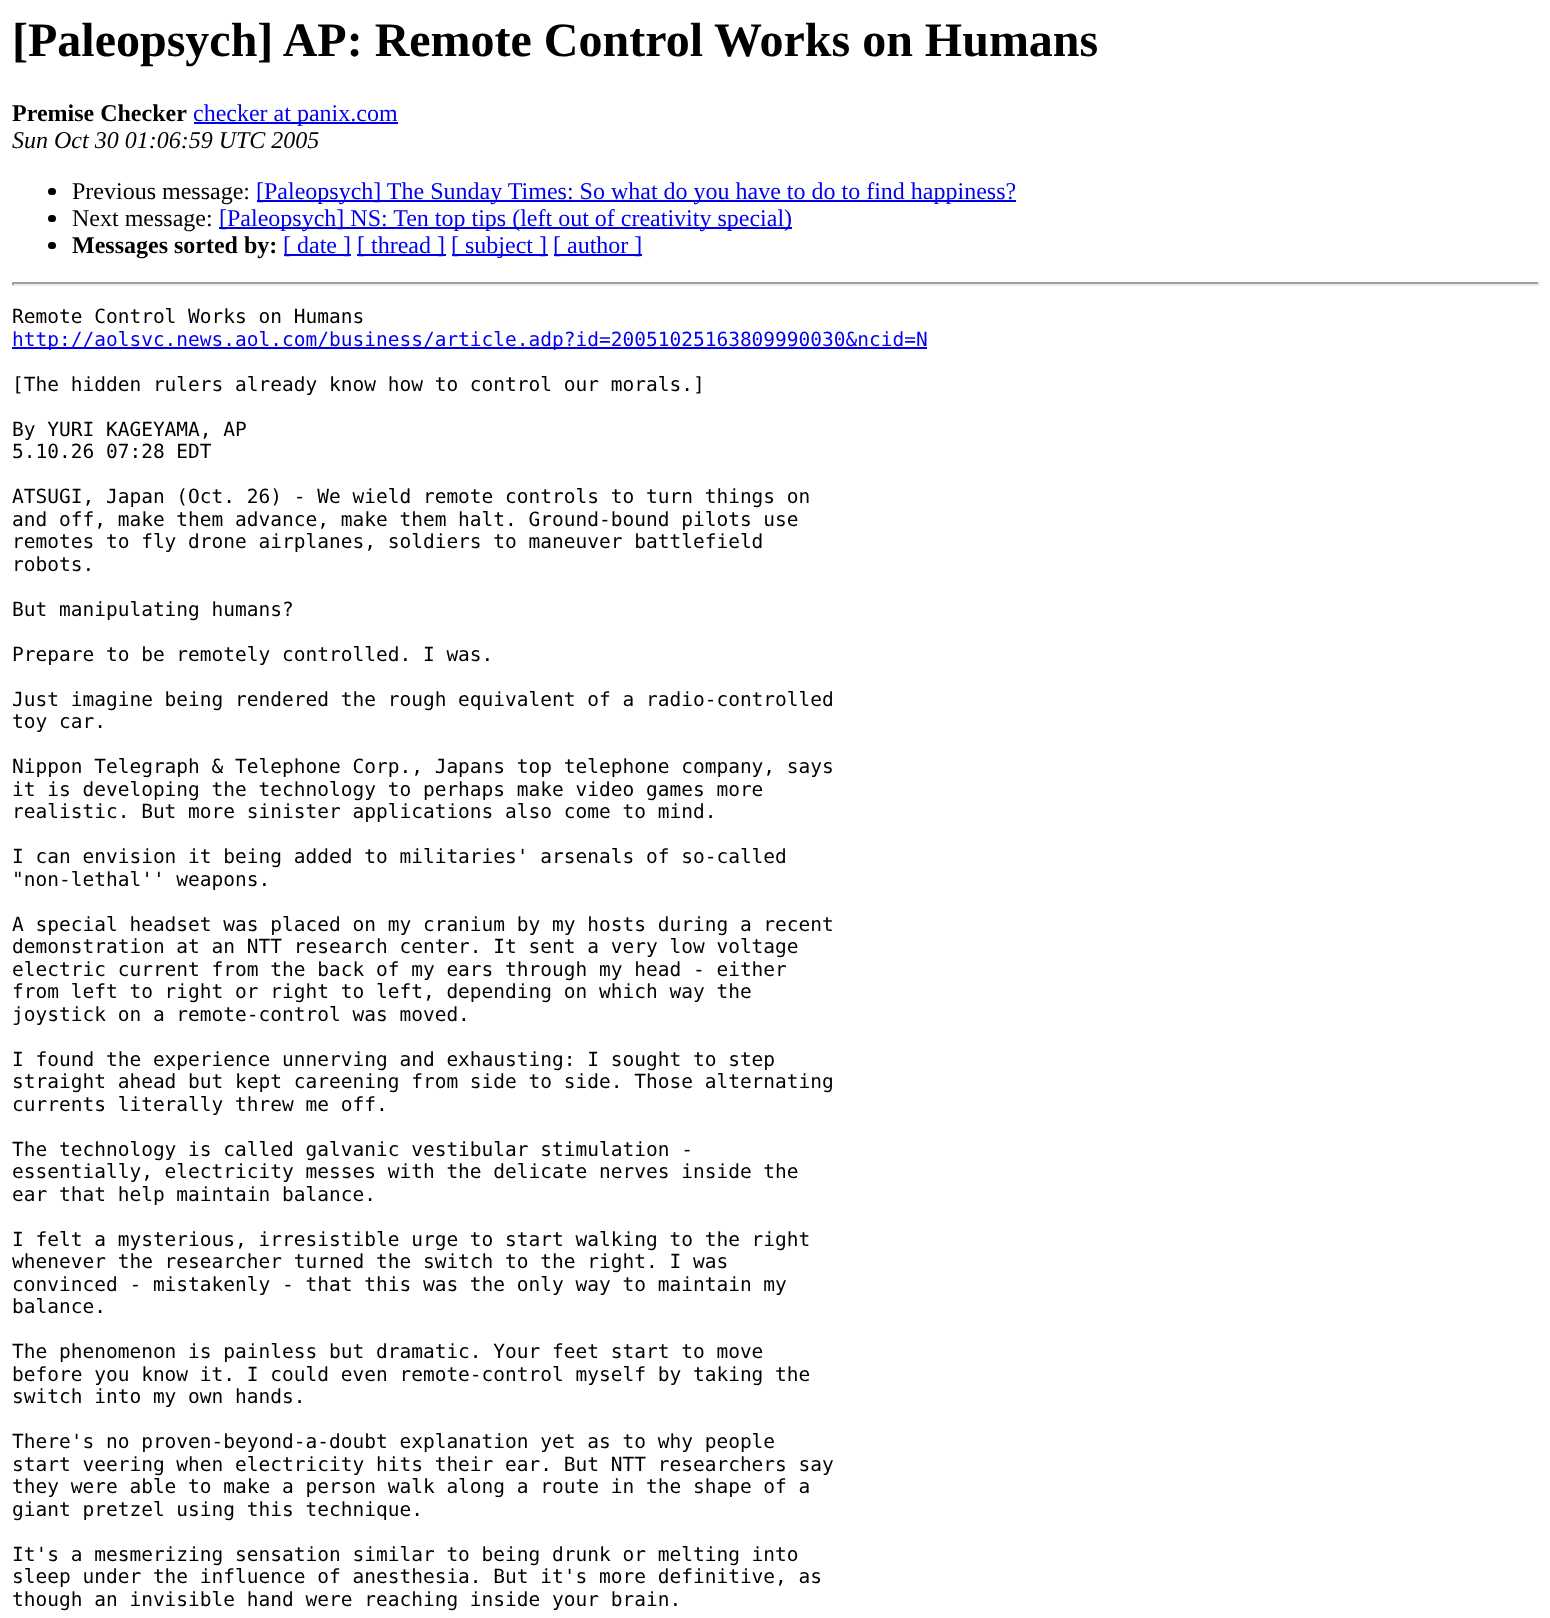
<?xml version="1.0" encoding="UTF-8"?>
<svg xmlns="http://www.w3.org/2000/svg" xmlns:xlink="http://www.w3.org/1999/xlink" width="1550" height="1618">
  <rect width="100%" height="100%" fill="#ffffff" />
  <rect x="194" y="122" width="204" height="2" fill="#0000ee" />
  <rect x="48" y="188" width="8" height="7" rx="3.5" fill="#000000" />
  <rect x="257" y="200" width="759" height="2" fill="#0000ee" />
  <rect x="48" y="215" width="8" height="7" rx="3.5" fill="#000000" />
  <rect x="219" y="227" width="573" height="2" fill="#0000ee" />
  <rect x="48" y="242" width="8" height="7" rx="3.5" fill="#000000" />
  <rect x="284" y="254" width="67" height="2" fill="#0000ee" />
  <rect x="357" y="254" width="89" height="2" fill="#0000ee" />
  <rect x="452" y="254" width="96" height="2" fill="#0000ee" />
  <rect x="554" y="254" width="88" height="2" fill="#0000ee" />
  <rect x="12" y="282" width="1527" height="2" fill="#9f9f9f" />
  <rect x="1538" y="282" width="2" height="3" fill="#eeeeee" />
  <rect x="12" y="284" width="1527" height="2" fill="#eeeeee" />
  <rect x="12" y="282" width="2" height="3" fill="#9f9f9f" />
  <rect x="12" y="347" width="915" height="2" fill="#0000ee" />
  <text x="12" y="56" style="font-family: Liberation Serif; font-size: 48px; font-weight: bold; fill: #000000">[Paleopsych] AP: Remote Control Works on Humans</text>
  <text x="12" y="121" style="font-family: Liberation Serif; font-size: 24px; font-weight: bold; fill: #000000">Premise Checker</text>
  <text x="193" y="121" style="font-family: Liberation Serif; font-size: 24px; fill: #0000ee">checker at panix.com</text>
  <text x="12" y="148" style="font-family: Liberation Serif; font-size: 24px; font-style: italic; fill: #000000">Sun Oct 30 01:06:59 UTC 2005</text>
  <text x="72" y="199" style="font-family: Liberation Serif; font-size: 24px; fill: #000000">Previous message:</text>
  <text x="256" y="199" style="font-family: Liberation Serif; font-size: 24px; fill: #0000ee">[Paleopsych] The Sunday Times: So what do you have to do to find happiness?</text>
  <text x="72" y="226" style="font-family: Liberation Serif; font-size: 24px; fill: #000000">Next message:</text>
  <text x="219" y="226" style="font-family: Liberation Serif; font-size: 24px; fill: #0000ee">[Paleopsych] NS: Ten top tips (left out of creativity special)</text>
  <text x="72" y="253" style="font-family: Liberation Serif; font-size: 24px; font-weight: bold; fill: #000000">Messages sorted by:</text>
  <text x="283" y="253" style="font-family: Liberation Serif; font-size: 24px; fill: #0000ee">[ date ]</text>
  <text x="357" y="253" style="font-family: Liberation Serif; font-size: 24px; fill: #0000ee">[ thread ]</text>
  <text x="451" y="253" style="font-family: Liberation Serif; font-size: 24px; fill: #0000ee">[ subject ]</text>
  <text x="553" y="253" style="font-family: Liberation Serif; font-size: 24px; fill: #0000ee">[ author ]</text>
  <text x="12" y="323" style="font-family: DejaVu Sans Mono; font-size: 19.5px; fill: #000000">Remote Control Works on Humans</text>
  <text x="12" y="346" style="font-family: DejaVu Sans Mono; font-size: 19.5px; fill: #0000ee">http://aolsvc.news.aol.com/business/article.adp?id=20051025163809990030&amp;ncid=N</text>
  <text x="12" y="391" style="font-family: DejaVu Sans Mono; font-size: 19.5px; fill: #000000">[The hidden rulers already know how to control our morals.]</text>
  <text x="12" y="436" style="font-family: DejaVu Sans Mono; font-size: 19.5px; fill: #000000">By YURI KAGEYAMA, AP</text>
  <text x="12" y="458" style="font-family: DejaVu Sans Mono; font-size: 19.5px; fill: #000000">5.10.26 07:28 EDT</text>
  <text x="12" y="503" style="font-family: DejaVu Sans Mono; font-size: 19.5px; fill: #000000">ATSUGI, Japan (Oct. 26) - We wield remote controls to turn things on</text>
  <text x="12" y="526" style="font-family: DejaVu Sans Mono; font-size: 19.5px; fill: #000000">and off, make them advance, make them halt. Ground-bound pilots use</text>
  <text x="12" y="548" style="font-family: DejaVu Sans Mono; font-size: 19.5px; fill: #000000">remotes to fly drone airplanes, soldiers to maneuver battlefield</text>
  <text x="12" y="571" style="font-family: DejaVu Sans Mono; font-size: 19.5px; fill: #000000">robots.</text>
  <text x="12" y="616" style="font-family: DejaVu Sans Mono; font-size: 19.5px; fill: #000000">But manipulating humans?</text>
  <text x="12" y="661" style="font-family: DejaVu Sans Mono; font-size: 19.5px; fill: #000000">Prepare to be remotely controlled. I was.</text>
  <text x="12" y="706" style="font-family: DejaVu Sans Mono; font-size: 19.5px; fill: #000000">Just imagine being rendered the rough equivalent of a radio-controlled</text>
  <text x="12" y="728" style="font-family: DejaVu Sans Mono; font-size: 19.5px; fill: #000000">toy car.</text>
  <text x="12" y="773" style="font-family: DejaVu Sans Mono; font-size: 19.5px; fill: #000000">Nippon Telegraph &amp; Telephone Corp., Japans top telephone company, says</text>
  <text x="12" y="796" style="font-family: DejaVu Sans Mono; font-size: 19.5px; fill: #000000">it is developing the technology to perhaps make video games more</text>
  <text x="12" y="818" style="font-family: DejaVu Sans Mono; font-size: 19.5px; fill: #000000">realistic. But more sinister applications also come to mind.</text>
  <text x="12" y="863" style="font-family: DejaVu Sans Mono; font-size: 19.5px; fill: #000000">I can envision it being added to militaries' arsenals of so-called</text>
  <text x="12" y="886" style="font-family: DejaVu Sans Mono; font-size: 19.5px; fill: #000000">"non-lethal'' weapons.</text>
  <text x="12" y="931" style="font-family: DejaVu Sans Mono; font-size: 19.5px; fill: #000000">A special headset was placed on my cranium by my hosts during a recent</text>
  <text x="12" y="953" style="font-family: DejaVu Sans Mono; font-size: 19.5px; fill: #000000">demonstration at an NTT research center. It sent a very low voltage</text>
  <text x="12" y="976" style="font-family: DejaVu Sans Mono; font-size: 19.5px; fill: #000000">electric current from the back of my ears through my head - either</text>
  <text x="12" y="998" style="font-family: DejaVu Sans Mono; font-size: 19.5px; fill: #000000">from left to right or right to left, depending on which way the</text>
  <text x="12" y="1021" style="font-family: DejaVu Sans Mono; font-size: 19.5px; fill: #000000">joystick on a remote-control was moved.</text>
  <text x="12" y="1066" style="font-family: DejaVu Sans Mono; font-size: 19.5px; fill: #000000">I found the experience unnerving and exhausting: I sought to step</text>
  <text x="12" y="1088" style="font-family: DejaVu Sans Mono; font-size: 19.5px; fill: #000000">straight ahead but kept careening from side to side. Those alternating</text>
  <text x="12" y="1111" style="font-family: DejaVu Sans Mono; font-size: 19.5px; fill: #000000">currents literally threw me off.</text>
  <text x="12" y="1156" style="font-family: DejaVu Sans Mono; font-size: 19.5px; fill: #000000">The technology is called galvanic vestibular stimulation -</text>
  <text x="12" y="1178" style="font-family: DejaVu Sans Mono; font-size: 19.5px; fill: #000000">essentially, electricity messes with the delicate nerves inside the</text>
  <text x="12" y="1201" style="font-family: DejaVu Sans Mono; font-size: 19.5px; fill: #000000">ear that help maintain balance.</text>
  <text x="12" y="1246" style="font-family: DejaVu Sans Mono; font-size: 19.5px; fill: #000000">I felt a mysterious, irresistible urge to start walking to the right</text>
  <text x="12" y="1268" style="font-family: DejaVu Sans Mono; font-size: 19.5px; fill: #000000">whenever the researcher turned the switch to the right. I was</text>
  <text x="12" y="1291" style="font-family: DejaVu Sans Mono; font-size: 19.5px; fill: #000000">convinced - mistakenly - that this was the only way to maintain my</text>
  <text x="12" y="1313" style="font-family: DejaVu Sans Mono; font-size: 19.5px; fill: #000000">balance.</text>
  <text x="12" y="1358" style="font-family: DejaVu Sans Mono; font-size: 19.5px; fill: #000000">The phenomenon is painless but dramatic. Your feet start to move</text>
  <text x="12" y="1381" style="font-family: DejaVu Sans Mono; font-size: 19.5px; fill: #000000">before you know it. I could even remote-control myself by taking the</text>
  <text x="12" y="1403" style="font-family: DejaVu Sans Mono; font-size: 19.5px; fill: #000000">switch into my own hands.</text>
  <text x="12" y="1448" style="font-family: DejaVu Sans Mono; font-size: 19.5px; fill: #000000">There's no proven-beyond-a-doubt explanation yet as to why people</text>
  <text x="12" y="1471" style="font-family: DejaVu Sans Mono; font-size: 19.5px; fill: #000000">start veering when electricity hits their ear. But NTT researchers say</text>
  <text x="12" y="1493" style="font-family: DejaVu Sans Mono; font-size: 19.5px; fill: #000000">they were able to make a person walk along a route in the shape of a</text>
  <text x="12" y="1516" style="font-family: DejaVu Sans Mono; font-size: 19.5px; fill: #000000">giant pretzel using this technique.</text>
  <text x="12" y="1561" style="font-family: DejaVu Sans Mono; font-size: 19.5px; fill: #000000">It's a mesmerizing sensation similar to being drunk or melting into</text>
  <text x="12" y="1583" style="font-family: DejaVu Sans Mono; font-size: 19.5px; fill: #000000">sleep under the influence of anesthesia. But it's more definitive, as</text>
  <text x="12" y="1606" style="font-family: DejaVu Sans Mono; font-size: 19.5px; fill: #000000">though an invisible hand were reaching inside your brain.</text>
</svg>
